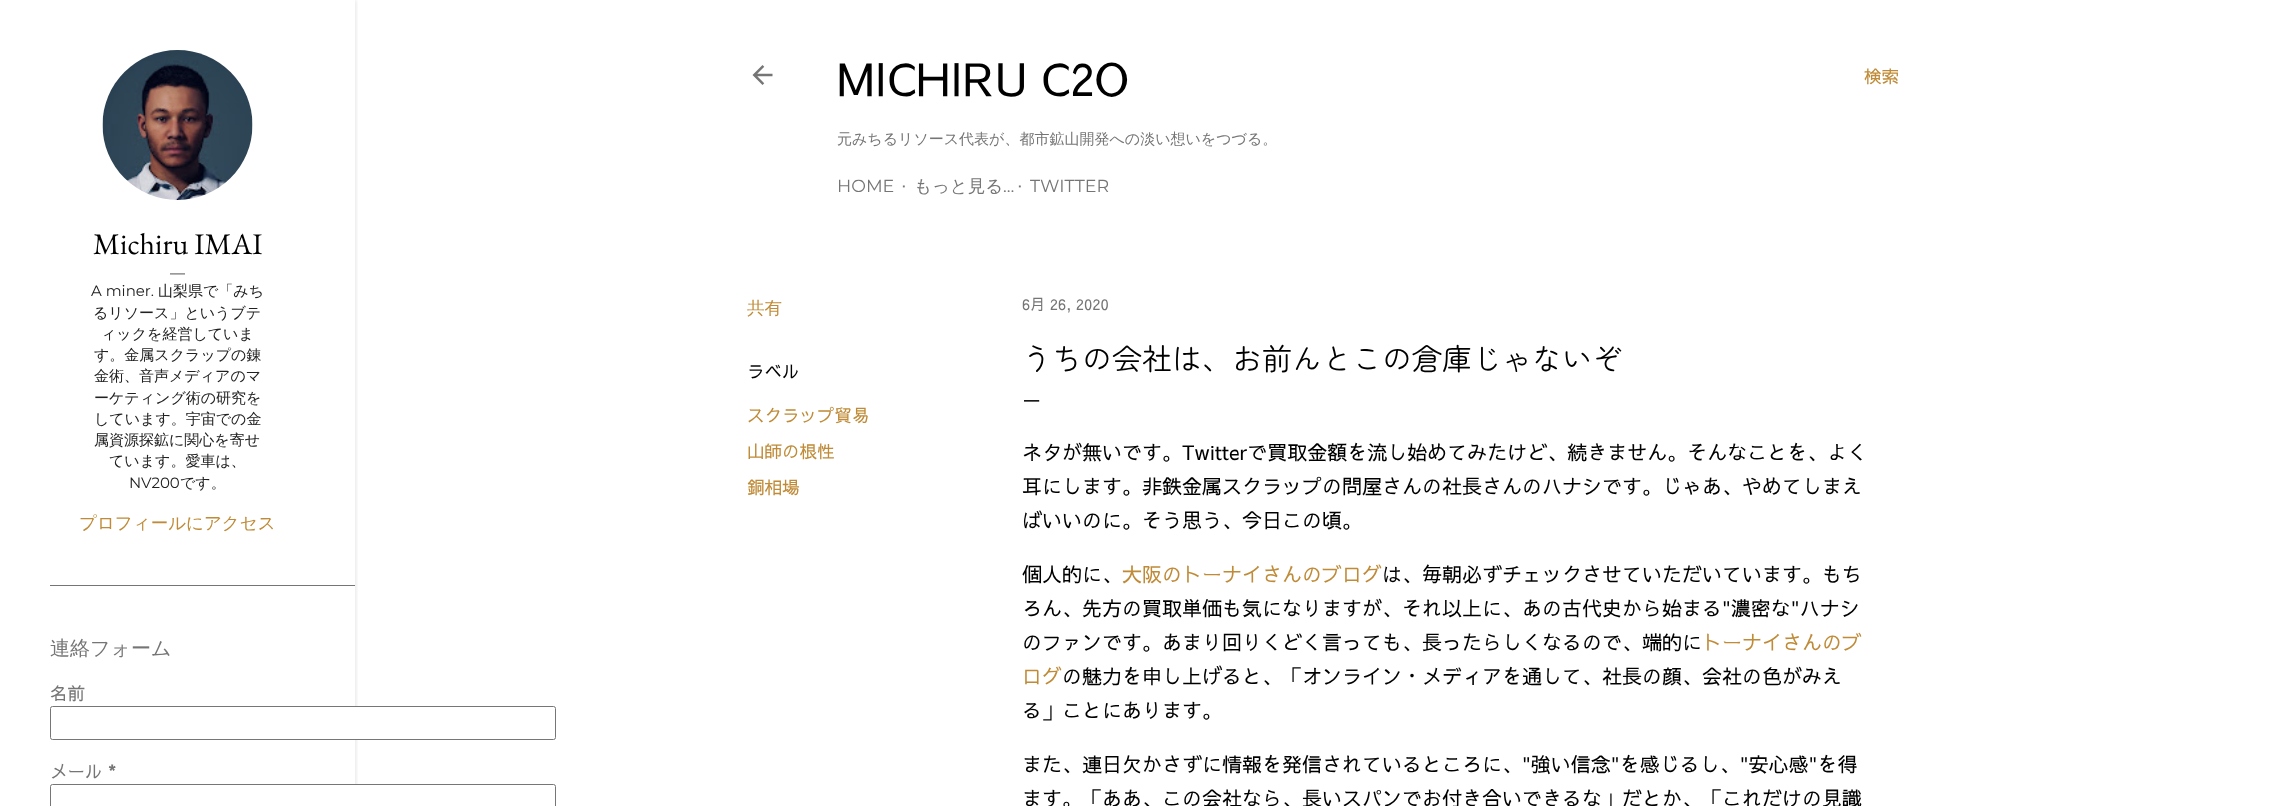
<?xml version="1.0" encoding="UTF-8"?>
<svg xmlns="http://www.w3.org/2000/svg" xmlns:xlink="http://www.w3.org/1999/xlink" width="2291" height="806">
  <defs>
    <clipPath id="clip1"><rect x="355" y="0" width="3" height="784" /></clipPath>
  </defs>
  <rect width="100%" height="100%" fill="#ffffff" />
  <g clip-path="url(#clip1)">
    <rect x="1" width="355" height="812" fill="#000000" fill-opacity="0.1" filter="blur(2px)" />
  </g>
  <image x="102" y="50" width="151" height="150" xlink:href="image1.png" />
  <rect x="50" y="585" width="305" height="1" fill="#757575" />
  <rect x="50.5" y="706.5" width="505" height="33" rx="2" fill="#ffffff" stroke="#767676" />
  <rect x="50.5" y="784.5" width="505" height="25" rx="2" fill="#ffffff" stroke="#767676" />
  <image x="752" y="65" width="21" height="20" xlink:href="image2.png" />
  <text x="93" y="254" style="font-family: EB Garamond; font-size: 30px; fill: #000000">Michiru IMAI</text>
  <text x="170" y="278" style="font-family: Montserrat; font-size: 15px; fill: #212121">—</text>
  <text x="91" y="296" style="font-family: Montserrat; font-size: 15px; fill: #212121">A miner.</text>
  <text x="158" y="296" style="font-family: WenQuanYi Zen Hei; font-size: 15px; font-weight: 500; fill: #212121">山梨県で「みち</text>
  <text x="93" y="318" style="font-family: WenQuanYi Zen Hei; font-size: 15px; font-weight: 500; fill: #212121">るリソース」というブテ</text>
  <text x="101" y="339" style="font-family: WenQuanYi Zen Hei; font-size: 15px; font-weight: 500; fill: #212121">ィックを経営していま</text>
  <text x="94" y="360" style="font-family: WenQuanYi Zen Hei; font-size: 15px; font-weight: 500; fill: #212121">す。金属スクラップの錬</text>
  <text x="94" y="381" style="font-family: WenQuanYi Zen Hei; font-size: 15px; font-weight: 500; fill: #212121">金術、音声メディアのマ</text>
  <text x="94" y="403" style="font-family: WenQuanYi Zen Hei; font-size: 15px; font-weight: 500; fill: #212121">ーケティング術の研究を</text>
  <text x="94" y="424" style="font-family: WenQuanYi Zen Hei; font-size: 15px; font-weight: 500; fill: #212121">しています。宇宙での金</text>
  <text x="94" y="445" style="font-family: WenQuanYi Zen Hei; font-size: 15px; font-weight: 500; fill: #212121">属資源探鉱に関心を寄せ</text>
  <text x="109" y="466" style="font-family: WenQuanYi Zen Hei; font-size: 15px; font-weight: 500; fill: #212121">ています。愛車は、</text>
  <text x="129" y="488" style="font-family: Montserrat; font-size: 15px; fill: #212121">NV200</text>
  <text x="180" y="488" style="font-family: WenQuanYi Zen Hei; font-size: 15px; font-weight: 500; fill: #212121">です。</text>
  <text x="79" y="529" style="font-family: WenQuanYi Zen Hei; font-size: 17.5px; font-weight: 500; fill: #bf8b38">プロフィールにアクセス</text>
  <text x="50" y="655" style="font-family: WenQuanYi Zen Hei; font-size: 20px; font-weight: 500; fill: #757575">連絡フォーム</text>
  <text x="50" y="700" style="font-family: Sawarabi Gothic; font-size: 17.5px; fill: #757575">名前</text>
  <text x="50" y="778" style="font-family: Sawarabi Gothic; font-size: 17.5px; fill: #757575">メール</text>
  <text x="108" y="778" style="font-family: Sawarabi Gothic; font-size: 17.5px; font-weight: bold; fill: #757575">*</text>
  <text x="837" y="96" style="font-family: Sawarabi Gothic; font-size: 45px; fill: #000000">MICHIRU C2O</text>
  <text x="837" y="144" style="font-family: WenQuanYi Zen Hei; font-size: 15px; font-weight: 500; fill: #757575">元みちるリソース代表が、都市鉱山開発への淡い想いをつづる。</text>
  <text x="837" y="192" style="font-family: Montserrat; font-size: 17.5px; fill: #757575">HOME</text>
  <text x="899" y="192" style="font-family: Sawarabi Gothic; font-size: 17.5px; fill: #757575">·</text>
  <text x="914" y="192" style="font-family: WenQuanYi Zen Hei; font-size: 17.5px; font-weight: 500; fill: #757575">もっと見る</text>
  <text x="1003" y="192" style="font-family: Montserrat; font-size: 17.5px; fill: #757575">…</text>
  <text x="1015" y="192" style="font-family: Sawarabi Gothic; font-size: 17.5px; fill: #757575">·</text>
  <text x="1030" y="192" style="font-family: Montserrat; font-size: 17.5px; fill: #757575">TWITTER</text>
  <text x="1864" y="83" style="font-family: Sawarabi Gothic; font-size: 17.5px; fill: #bf8b38">検索</text>
  <text x="747" y="314" style="font-family: WenQuanYi Zen Hei; font-size: 17.5px; font-weight: 500; fill: #bf8b38">共有</text>
  <text x="747" y="378" style="font-family: Sawarabi Gothic; font-size: 17.5px; fill: #000000">ラベル</text>
  <text x="747" y="422" style="font-family: Sawarabi Gothic; font-size: 17.5px; fill: #bf8b38">スクラップ貿易</text>
  <text x="747" y="458" style="font-family: Sawarabi Gothic; font-size: 17.5px; fill: #bf8b38">山師の根性</text>
  <text x="747" y="494" style="font-family: Sawarabi Gothic; font-size: 17.5px; fill: #bf8b38">銅相場</text>
  <text x="1022" y="310" style="font-family: Sawarabi Gothic; font-size: 15px; fill: #757575">6月 26, 2020</text>
  <text x="1022" y="370" style="font-family: Zen Maru Gothic; font-size: 30px; fill: #000000">うちの会社は、お前んとこの倉庫じゃないぞ</text>
  <text x="1022" y="408" style="font-family: Sawarabi Gothic; font-size: 25px; fill: #000000">—</text>
  <text x="1022" y="460" style="font-family: Sawarabi Gothic; font-size: 20px; fill: #000000">ネタが無いです。Twitterで買取金額を流し始めてみたけど、続きません。そんなことを、よく</text>
  <text x="1022" y="494" style="font-family: Sawarabi Gothic; font-size: 20px; fill: #000000">耳にします。非鉄金属スクラップの問屋さんの社長さんのハナシです。じゃあ、やめてしまえ</text>
  <text x="1022" y="528" style="font-family: Sawarabi Gothic; font-size: 20px; fill: #000000">ばいいのに。そう思う、今日この頃。</text>
  <text x="1022" y="582" style="font-family: Sawarabi Gothic; font-size: 20px; fill: #000000">個人的に、</text>
  <text x="1122" y="582" style="font-family: Sawarabi Gothic; font-size: 20px; fill: #bf8b38">大阪のトーナイさんのブログ</text>
  <text x="1382" y="582" style="font-family: Sawarabi Gothic; font-size: 20px; fill: #000000">は、毎朝必ずチェックさせていただいています。もち</text>
  <text x="1022" y="616" style="font-family: Sawarabi Gothic; font-size: 20px; fill: #000000">ろん、先方の買取単価も気になりますが、それ以上に、あの古代史から始まる"濃密な"ハナシ</text>
  <text x="1022" y="650" style="font-family: Sawarabi Gothic; font-size: 20px; fill: #000000">のファンです。あまり回りくどく言っても、長ったらしくなるので、端的に</text>
  <text x="1702" y="650" style="font-family: Sawarabi Gothic; font-size: 20px; fill: #bf8b38">トーナイさんのブ</text>
  <text x="1022" y="684" style="font-family: Sawarabi Gothic; font-size: 20px; fill: #bf8b38">ログ</text>
  <text x="1062" y="684" style="font-family: Sawarabi Gothic; font-size: 20px; fill: #000000">の魅力を申し上げると、「オンライン・メディアを通して、社長の顔、会社の色がみえ</text>
  <text x="1022" y="718" style="font-family: Sawarabi Gothic; font-size: 20px; fill: #000000">る」ことにあります。</text>
  <text x="1022" y="772" style="font-family: Sawarabi Gothic; font-size: 20px; fill: #000000">また、連日欠かさずに情報を発信されているところに、"強い信念"を感じるし、"安心感"を得</text>
  <text x="1022" y="806" style="font-family: Sawarabi Gothic; font-size: 20px; fill: #000000">ます。「ああ、この会社なら、長いスパンでお付き合いできるな」だとか、「これだけの見識</text>
</svg>
